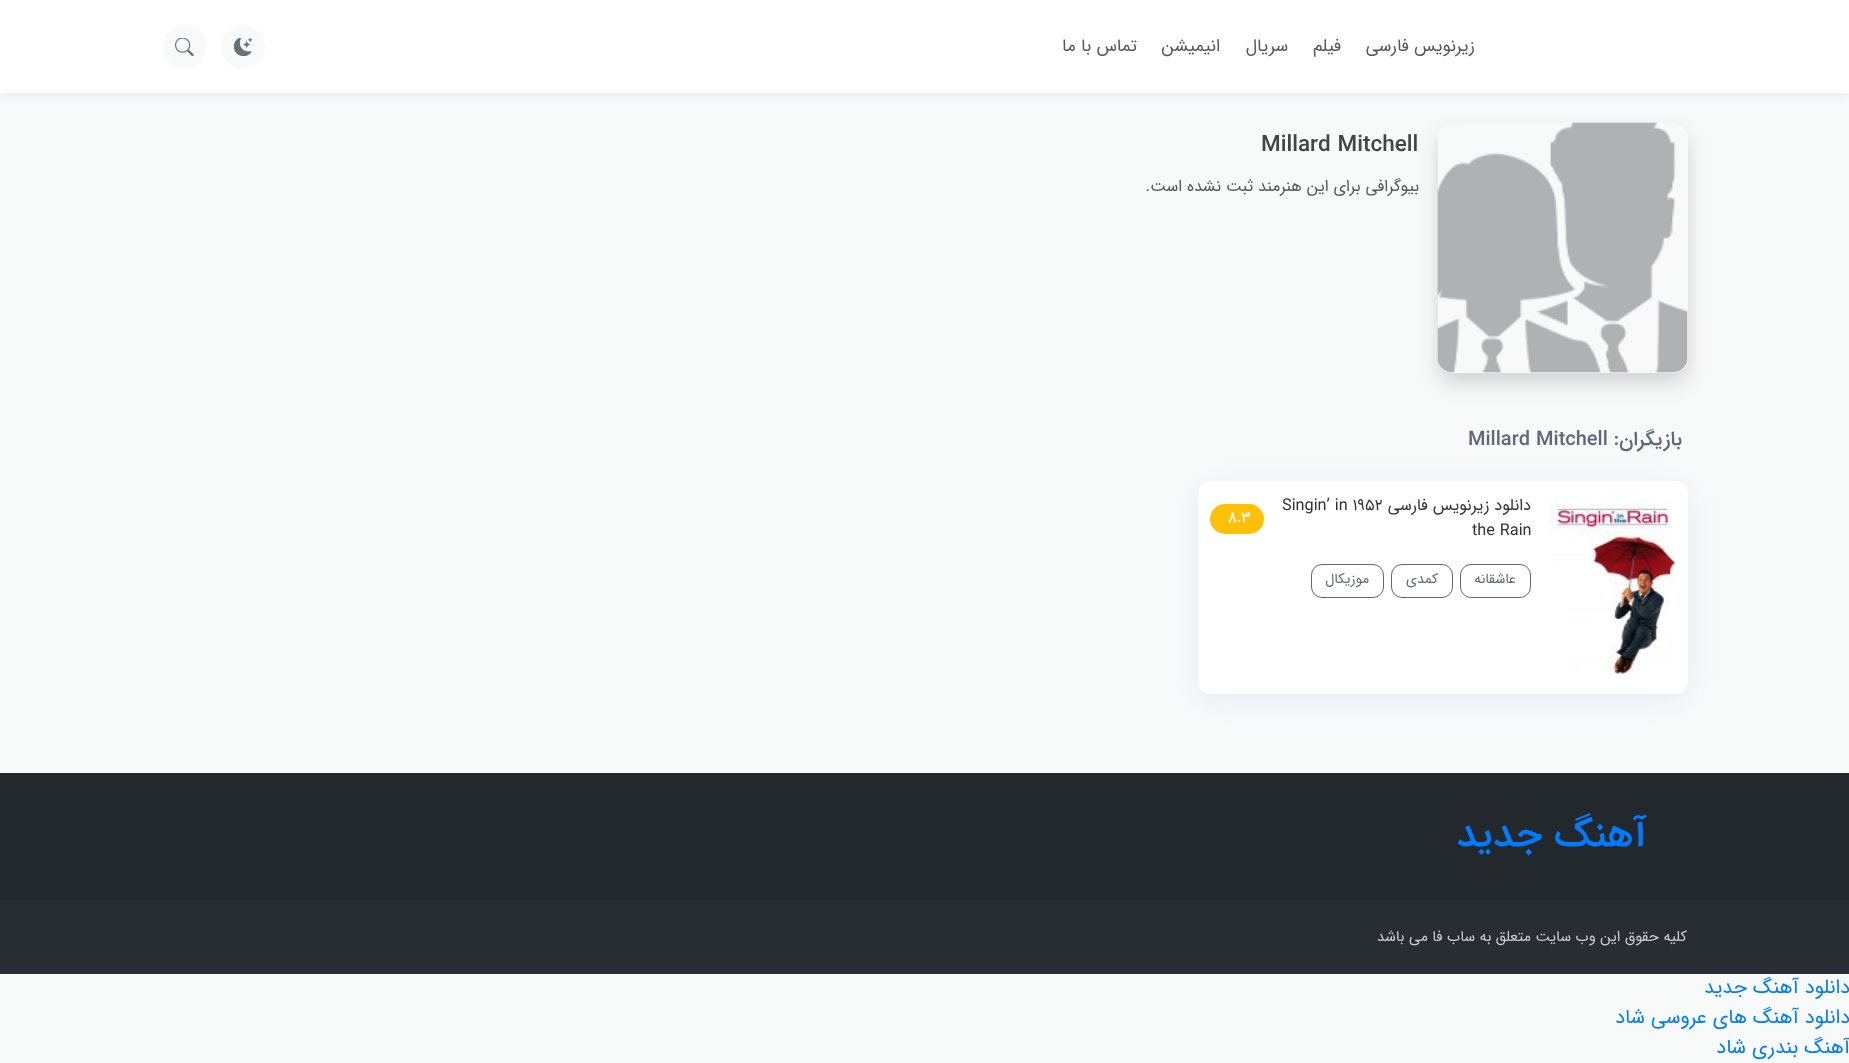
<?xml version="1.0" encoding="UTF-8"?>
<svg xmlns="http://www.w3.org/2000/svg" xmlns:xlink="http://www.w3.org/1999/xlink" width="1849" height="1063">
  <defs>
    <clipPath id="clip1"><path d="M 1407 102 h 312 v 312 h -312 z m 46 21 h 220 c 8.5 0 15 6.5 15 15 v 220 c 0 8.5 -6.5 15 -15 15 h -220 c -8.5 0 -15 -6.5 -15 -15 v -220 c 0 -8.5 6.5 -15 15 -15 z" clip-rule="evenodd" /></clipPath>
  </defs>
  <rect width="100%" height="100%" fill="#f8fafa" />
  <rect y="3" width="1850" height="92" fill="#a0b2c8" fill-opacity="0.2" filter="blur(6px)" />
  <rect width="1849" height="93" fill="#ffffff" />
  <circle cx="243" cy="47" r="22" fill="#f8fafa" />
  <image x="234" y="38" width="19" height="18" xlink:href="image1.png" />
  <rect x="163" y="25" width="43" height="44" rx="21.5" fill="#f8fafa" />
  <image x="175" y="38" width="19" height="18" xlink:href="image2.png" />
  <g clip-path="url(#clip1)">
    <rect x="1438" y="133" width="250" height="250" rx="15" fill="#000000" fill-opacity="0.15" filter="blur(10px)" />
  </g>
  <image x="1437" y="122" width="251" height="251" xlink:href="image3.png" />
  <rect x="1198" y="488" width="490" height="212" rx="13" fill="#a0b2c8" fill-opacity="0.2" filter="blur(15.5px)" />
  <rect x="1198" y="481" width="490" height="213" rx="13" fill="#ffffff" />
  <image x="1550" y="494" width="125" height="181" xlink:href="image4.png" />
  <rect x="1210" y="504" width="54" height="30" rx="15" fill="#ffc107" />
  <rect x="1460.5" y="564.5" width="70" height="33" rx="10.5" fill="none" stroke="#64686e" />
  <rect x="1391.5" y="564.5" width="61" height="33" rx="10.5" fill="none" stroke="#64686e" />
  <rect x="1311.5" y="564.5" width="72" height="33" rx="10.5" fill="none" stroke="#64686e" />
  <rect y="773" width="1849" height="128" fill="#23282d" />
  <rect y="901" width="1849" height="73" fill="#282d33" />
  <text x="1475" y="51" style="font-family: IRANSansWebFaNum; font-size: 17.5px; direction: rtl; fill: #575757">زیرنویس فارسی</text>
  <text x="1341" y="51" style="font-family: IRANSansWebFaNum; font-size: 17.5px; direction: rtl; fill: #575757">فیلم</text>
  <text x="1288" y="51" style="font-family: IRANSansWebFaNum; font-size: 17.5px; direction: rtl; fill: #575757">سریال</text>
  <text x="1220" y="51" style="font-family: IRANSansWebFaNum; font-size: 17.5px; direction: rtl; fill: #575757">انیمیشن</text>
  <text x="1137" y="51" style="font-family: IRANSansWebFaNum; font-size: 17.5px; direction: rtl; fill: #575757">تماس با ما</text>
  <text x="1261" y="151" style="font-family: IRANSansWebFaNum; font-size: 22.5px; font-weight: 500; fill: #444444">Millard Mitchell</text>
  <text x="1419" y="191" style="font-family: IRANSansWebFaNum; font-size: 16.25px; direction: rtl; fill: #575757">بیوگرافی برای این هنرمند ثبت نشده است.</text>
  <text x="1682" y="445" style="font-family: IRANSansWebFaNum; font-size: 20px; font-weight: 500; direction: rtl; fill: #606778">بازیگران:</text>
  <text x="1468" y="445" style="font-family: IRANSansWebFaNum; font-size: 20px; font-weight: 500; fill: #606778">Millard Mitchell</text>
  <text x="1531" y="510" style="font-family: IRANSansWebFaNum; font-size: 16.25px; direction: rtl; fill: #333333">دانلود زیرنویس فارسی</text>
  <text x="1282" y="510" style="font-family: IRANSansWebFaNum; font-size: 16.25px; fill: #333333">Singin’ in 1952</text>
  <text x="1472" y="535" style="font-family: IRANSansWebFaNum; font-size: 16.25px; fill: #333333">the Rain</text>
  <text x="1228" y="522" style="font-family: IRANSansWebFaNum; font-size: 15px; font-weight: 500; fill: #ffffff">8.3</text>
  <text x="1516" y="583" style="font-family: IRANSansWebFaNum; font-size: 14px; direction: rtl; fill: #64686e">عاشقانه</text>
  <text x="1438" y="583" style="font-family: IRANSansWebFaNum; font-size: 14px; direction: rtl; fill: #64686e">کمدی</text>
  <text x="1369" y="583" style="font-family: IRANSansWebFaNum; font-size: 14px; direction: rtl; fill: #64686e">موزیکال</text>
  <text x="1647" y="846" style="font-family: IRANSansWebFaNum; font-size: 40px; font-weight: 500; direction: rtl; fill: #007bff">آهنگ جدید</text>
  <text x="1687" y="941" style="font-family: IRANSansWebFaNum; font-size: 15px; direction: rtl; fill: #cccccc">کلیه حقوق این وب سایت متعلق به ساب فا می باشد</text>
  <text x="1850" y="993" style="font-family: IRANSansWebFaNum; font-size: 20px; direction: rtl; fill: #007bff">دانلود آهنگ جدید</text>
  <text x="1850" y="1023" style="font-family: IRANSansWebFaNum; font-size: 20px; direction: rtl; fill: #007bff">دانلود آهنگ های عروسی شاد</text>
  <text x="1850" y="1053" style="font-family: IRANSansWebFaNum; font-size: 20px; direction: rtl; fill: #007bff">آهنگ بندری شاد</text>
</svg>
